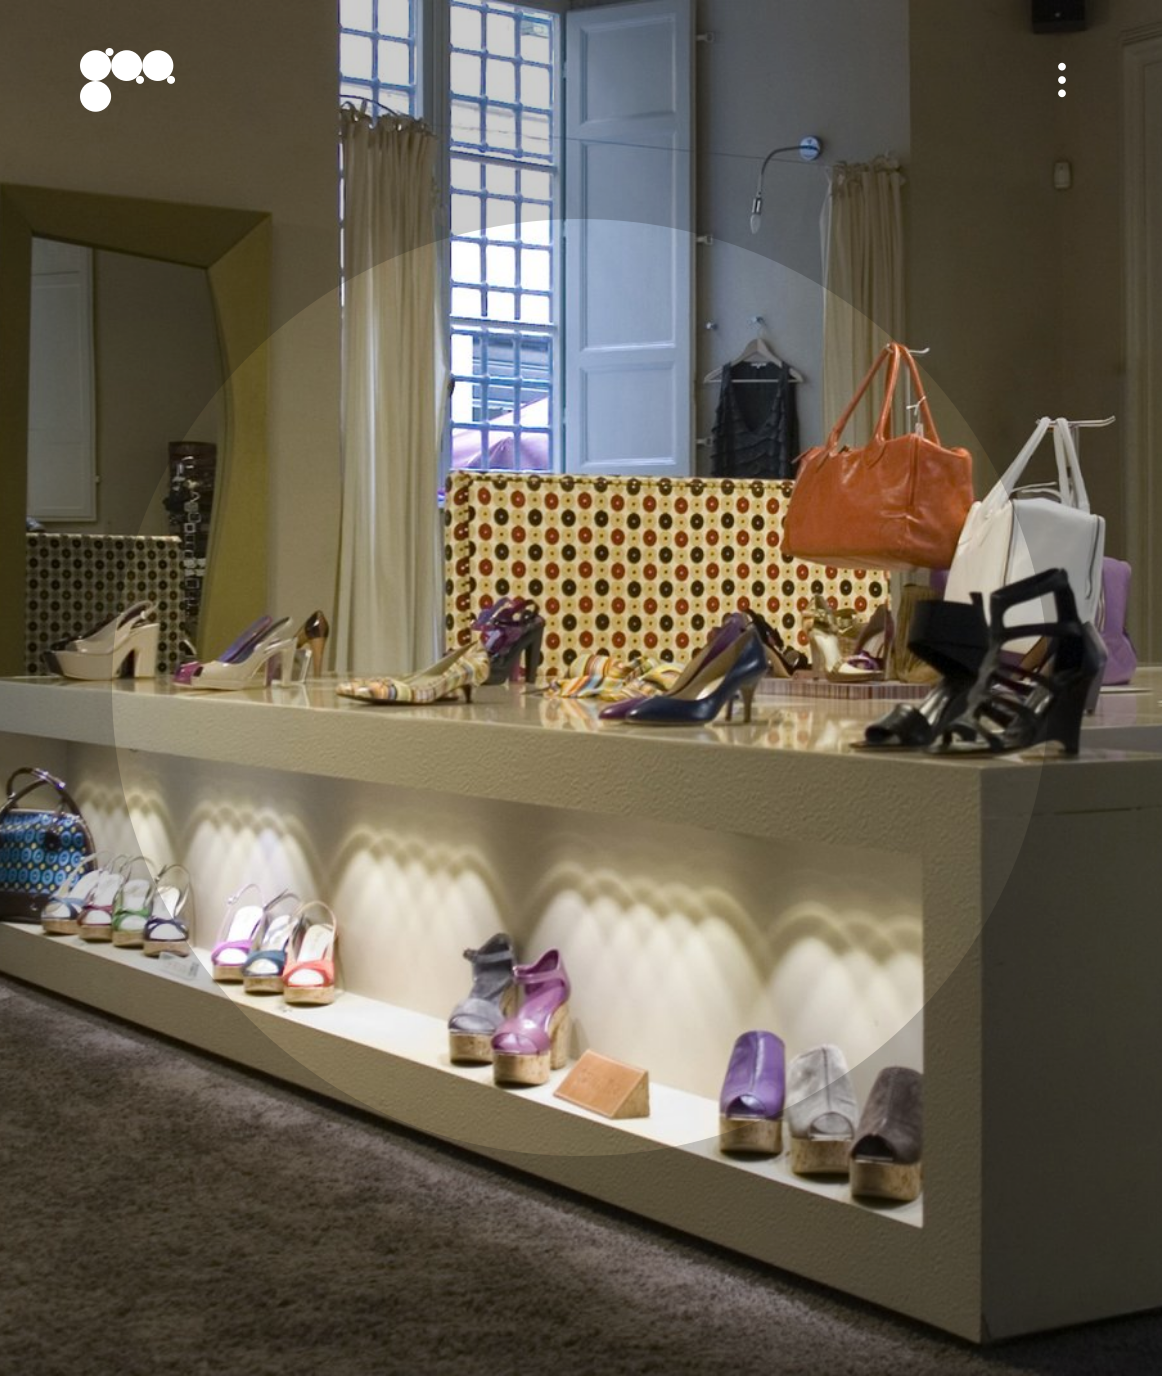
<?xml version="1.0" encoding="UTF-8"?>
<svg xmlns="http://www.w3.org/2000/svg" xmlns:xlink="http://www.w3.org/1999/xlink" width="1162" height="1376">
  <rect width="100%" height="100%" fill="#ffffff" />
  <image x="0" y="0" width="1162" height="1376" xlink:href="image1.png" />
  <image x="80" y="48" width="95" height="64" xlink:href="image2.png" />
  <image x="1058" y="62" width="8" height="36" xlink:href="image3.png" />
</svg>
